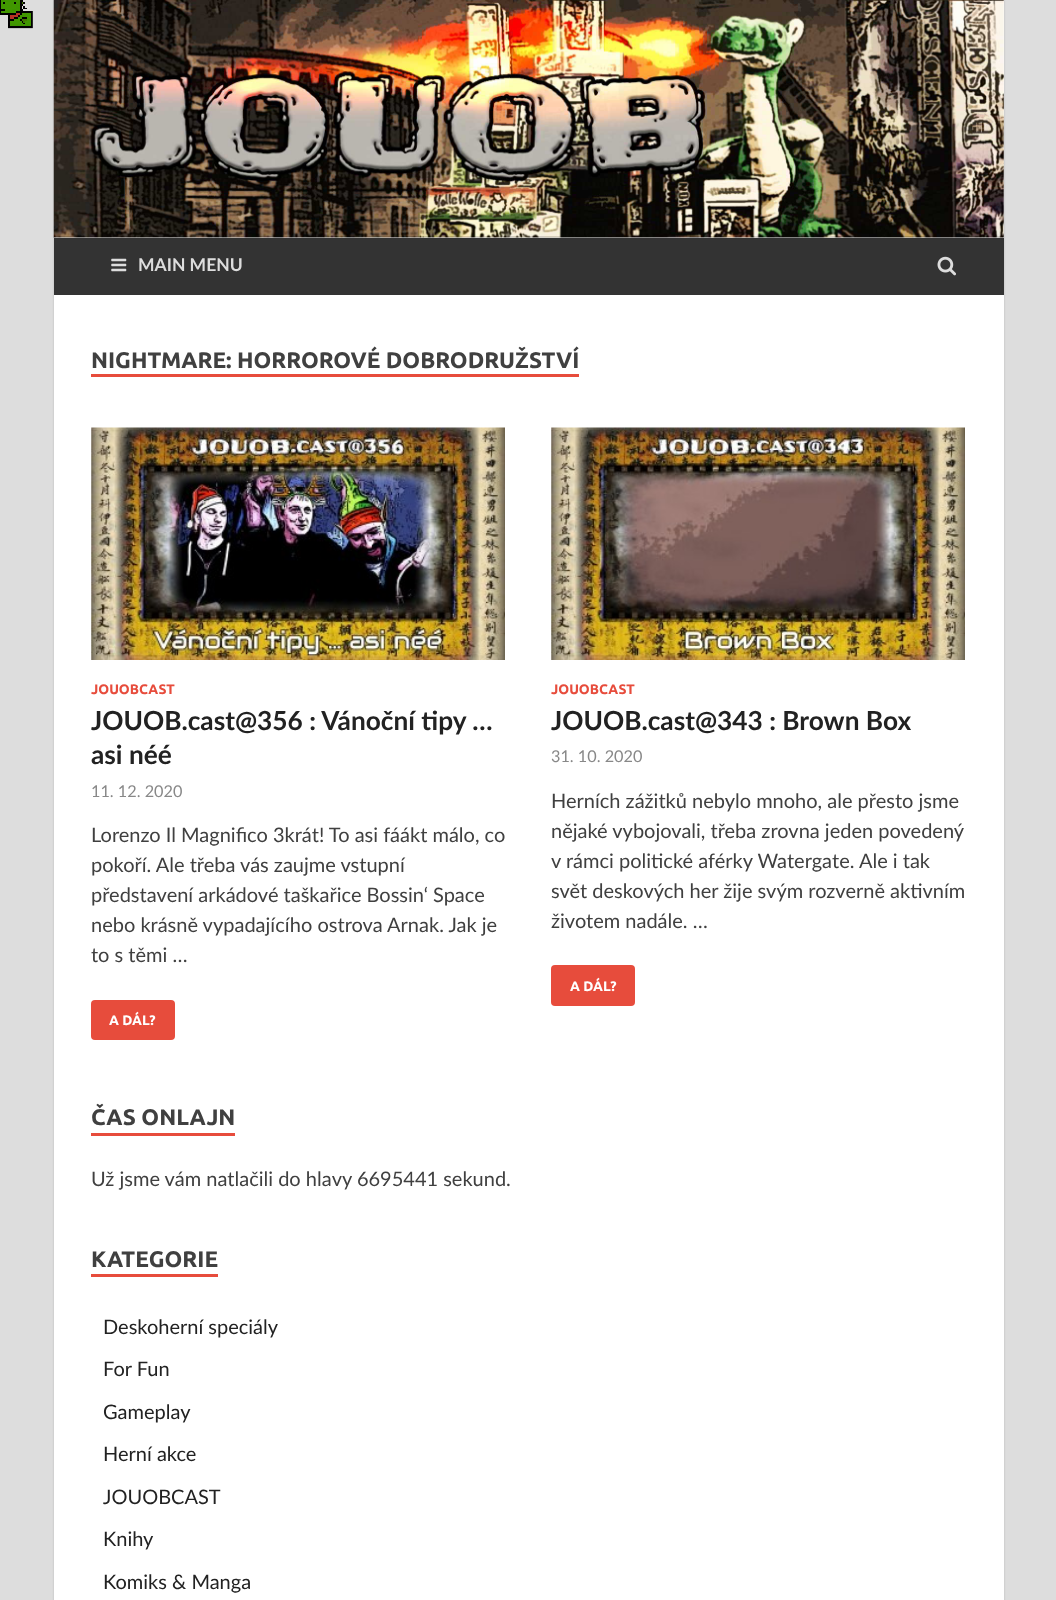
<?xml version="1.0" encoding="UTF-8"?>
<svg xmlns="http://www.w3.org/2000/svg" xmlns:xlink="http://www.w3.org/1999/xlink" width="1056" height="1600">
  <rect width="100%" height="100%" fill="#dddddd" />
  <rect x="54" width="950" height="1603" fill="#bbbbbb" filter="blur(1px)" />
  <rect x="54" width="950" height="1600" fill="#ffffff" />
  <image x="0" y="0" width="33" height="29" xlink:href="image1.png" />
  <image x="53" y="0" width="951" height="238" xlink:href="image2.png" />
  <rect x="54" y="238" width="950" height="57" fill="#333333" />
  <image x="111" y="258" width="16" height="14" xlink:href="image3.png" />
  <image x="937" y="256" width="19" height="20" xlink:href="image4.png" />
  <rect x="91" y="374" width="488" height="3" fill="#e74c3c" />
  <image x="91" y="427" width="414" height="233" xlink:href="image5.png" />
  <rect x="91" y="1000" width="84" height="40" rx="4" fill="#e74c3c" />
  <image x="551" y="427" width="414" height="233" xlink:href="image6.png" />
  <rect x="551" y="965" width="84" height="41" rx="4" fill="#e74c3c" />
  <rect x="91" y="1133" width="144" height="3" fill="#e74c3c" />
  <rect x="91" y="1274" width="127" height="3" fill="#e74c3c" />
  <text x="138" y="271" style="font-family: Lato; font-size: 17.5px; font-weight: bold; fill: #dddddd">MAIN MENU</text>
  <text x="91" y="368" style="font-family: Ubuntu; font-size: 22.5px; font-weight: bold; fill: #404040">NIGHTMARE: HORROROVÉ DOBRODRUŽSTVÍ</text>
  <text x="91" y="694" style="font-family: Ubuntu; font-size: 13.75px; font-weight: bold; fill: #e74c3c">JOUOBCAST</text>
  <text x="91" y="730" style="font-family: Lato; font-size: 26.25px; font-weight: bold; fill: #222222">JOUOB.cast@356 : Vánoční tipy …</text>
  <text x="91" y="764" style="font-family: Lato; font-size: 26.25px; font-weight: bold; fill: #222222">asi néé</text>
  <text x="91" y="797" style="font-family: Lato; font-size: 16.25px; fill: #888888">11. 12. 2020</text>
  <text x="91" y="842" style="font-family: Lato; font-size: 20px; fill: #404040">Lorenzo Il Magnifico 3krát! To asi fáákt málo, co</text>
  <text x="91" y="872" style="font-family: Lato; font-size: 20px; fill: #404040">pokoří. Ale třeba vás zaujme vstupní</text>
  <text x="91" y="902" style="font-family: Lato; font-size: 20px; fill: #404040">představení arkádové taškařice Bossin‘ Space</text>
  <text x="91" y="932" style="font-family: Lato; font-size: 20px; fill: #404040">nebo krásně vypadajícího ostrova Arnak. Jak je</text>
  <text x="91" y="962" style="font-family: Lato; font-size: 20px; fill: #404040">to s těmi …</text>
  <text x="109" y="1025" style="font-family: Ubuntu; font-size: 13.75px; font-weight: bold; fill: #ffffff">A DÁL?</text>
  <text x="551" y="694" style="font-family: Ubuntu; font-size: 13.75px; font-weight: bold; fill: #e74c3c">JOUOBCAST</text>
  <text x="551" y="730" style="font-family: Lato; font-size: 26.25px; font-weight: bold; fill: #222222">JOUOB.cast@343 : Brown Box</text>
  <text x="551" y="762" style="font-family: Lato; font-size: 16.25px; fill: #888888">31. 10. 2020</text>
  <text x="551" y="808" style="font-family: Lato; font-size: 20px; fill: #404040">Herních zážitků nebylo mnoho, ale přesto jsme</text>
  <text x="551" y="838" style="font-family: Lato; font-size: 20px; fill: #404040">nějaké vybojovali, třeba zrovna jeden povedený</text>
  <text x="551" y="868" style="font-family: Lato; font-size: 20px; fill: #404040">v rámci politické aférky Watergate. Ale i tak</text>
  <text x="551" y="898" style="font-family: Lato; font-size: 20px; fill: #404040">svět deskových her žije svým rozverně aktivním</text>
  <text x="551" y="928" style="font-family: Lato; font-size: 20px; fill: #404040">životem nadále. …</text>
  <text x="570" y="991" style="font-family: Ubuntu; font-size: 13.75px; font-weight: bold; fill: #ffffff">A DÁL?</text>
  <text x="91" y="1125" style="font-family: Ubuntu; font-size: 22.5px; font-weight: bold; fill: #404040">ČAS ONLAJN</text>
  <text x="91" y="1186" style="font-family: Lato; font-size: 20px; fill: #404040">Už jsme vám natlačili do hlavy 6695441 sekund.</text>
  <text x="91" y="1267" style="font-family: Ubuntu; font-size: 22.5px; font-weight: bold; fill: #404040">KATEGORIE</text>
  <text x="103" y="1334" style="font-family: Lato; font-size: 20px; fill: #222222">Deskoherní speciály</text>
  <text x="103" y="1376" style="font-family: Lato; font-size: 20px; fill: #222222">For Fun</text>
  <text x="103" y="1419" style="font-family: Lato; font-size: 20px; fill: #222222">Gameplay</text>
  <text x="103" y="1461" style="font-family: Lato; font-size: 20px; fill: #222222">Herní akce</text>
  <text x="103" y="1504" style="font-family: Lato; font-size: 20px; fill: #222222">JOUOBCAST</text>
  <text x="103" y="1546" style="font-family: Lato; font-size: 20px; fill: #222222">Knihy</text>
  <text x="103" y="1589" style="font-family: Lato; font-size: 20px; fill: #222222">Komiks &amp; Manga</text>
</svg>
